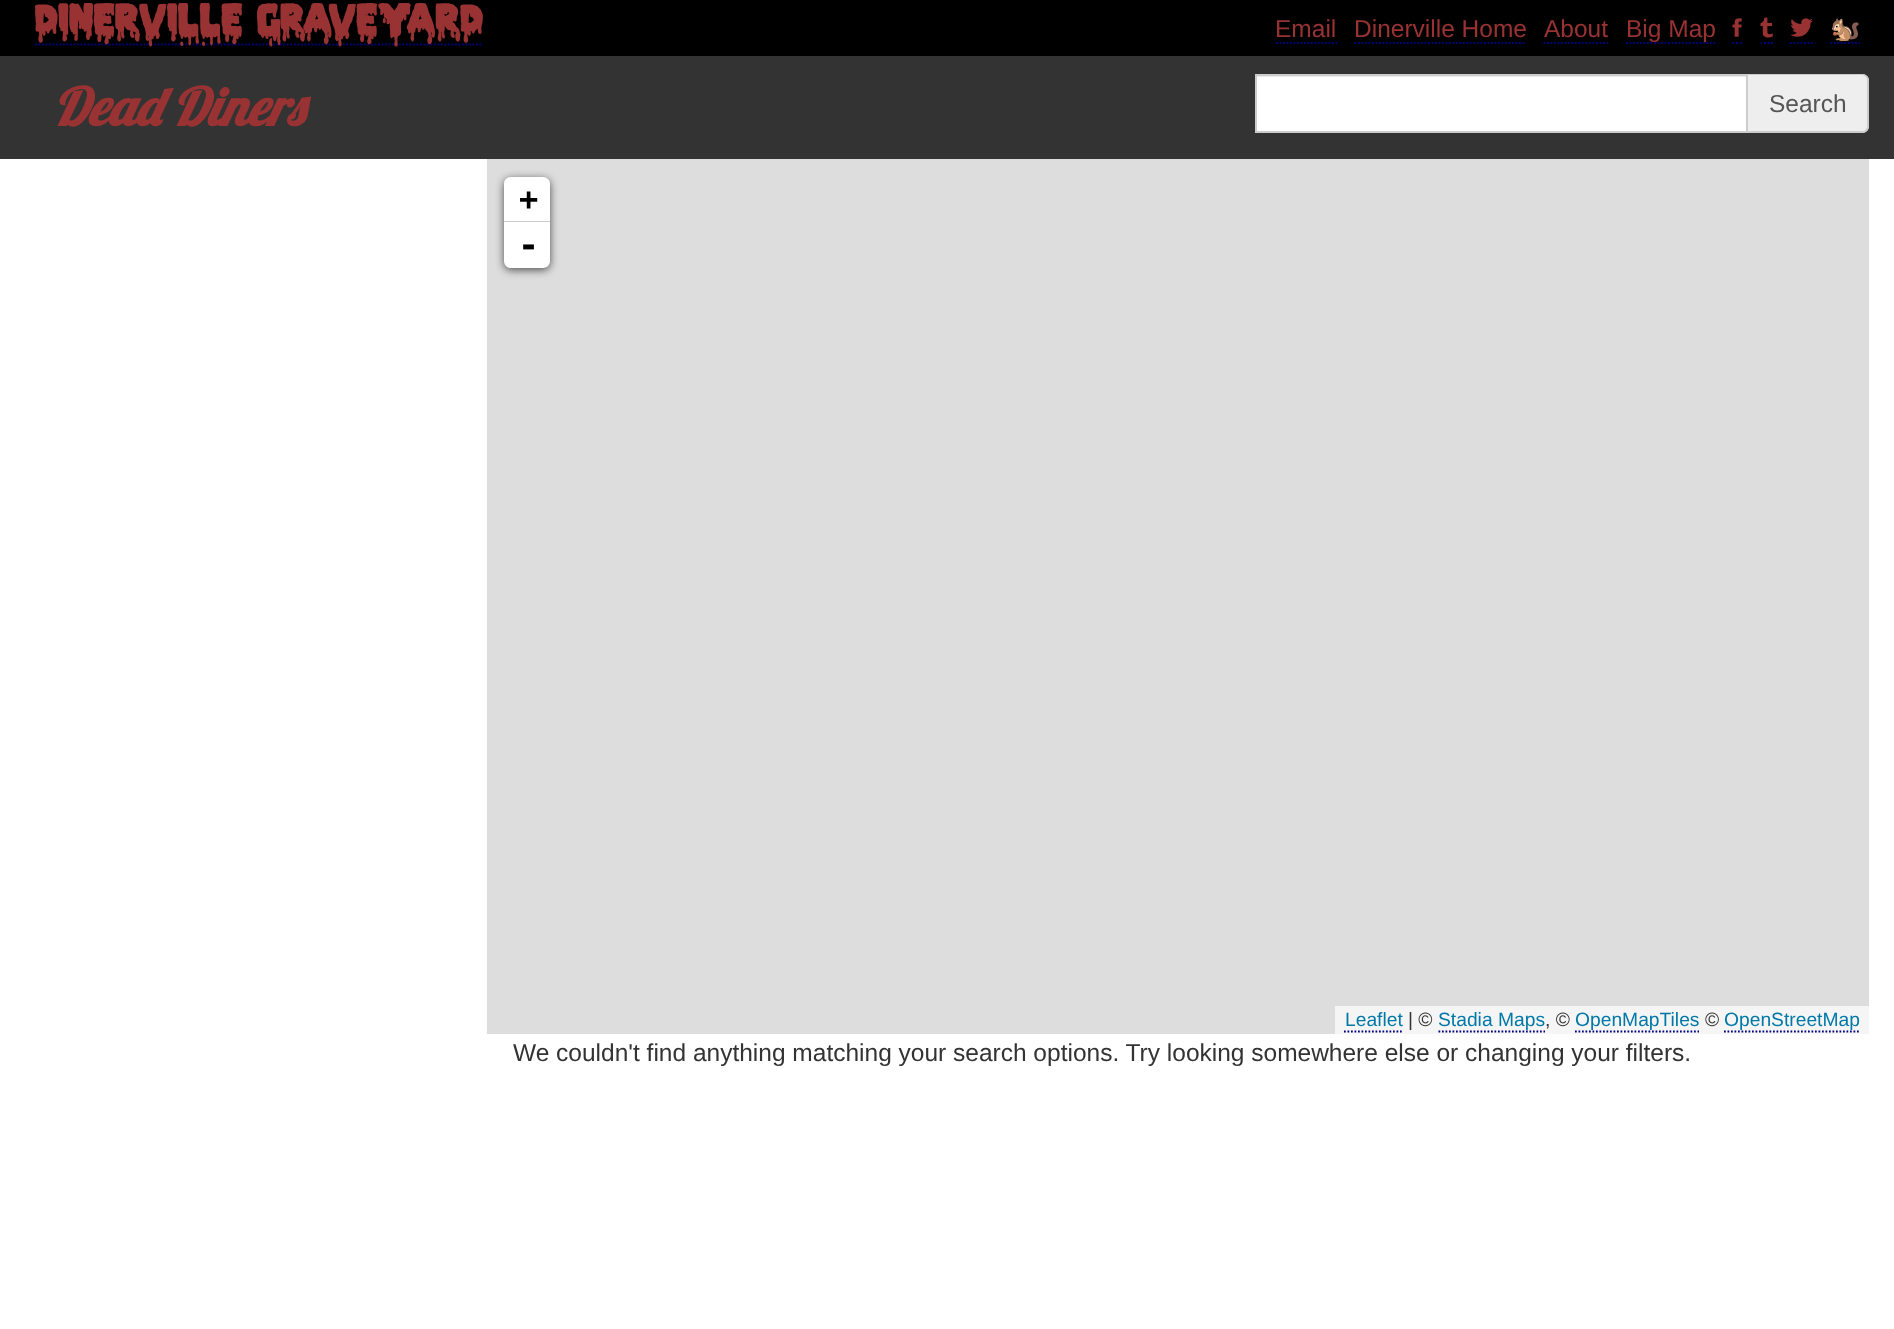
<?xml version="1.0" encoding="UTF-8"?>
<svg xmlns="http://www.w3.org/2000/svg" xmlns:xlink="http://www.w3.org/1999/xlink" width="1894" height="1329">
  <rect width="100%" height="100%" fill="#ffffff" />
  <rect width="1894" height="56" fill="#000000" />
  <path d="M 35 44.5 h 448" fill="none" stroke="#000080" stroke-width="1.8" stroke-dasharray="1.75 1.75" />
  <path d="M 1276 43 h 61" fill="none" stroke="#000080" stroke-width="1.8" stroke-dasharray="1.75 1.75" />
  <path d="M 1354.5 43 h 171.5" fill="none" stroke="#000080" stroke-width="1.8" stroke-dasharray="1.75 1.75" />
  <path d="M 1543.5 43 h 64.5" fill="none" stroke="#000080" stroke-width="1.8" stroke-dasharray="1.75 1.75" />
  <path d="M 1626 43 h 89" fill="none" stroke="#000080" stroke-width="1.8" stroke-dasharray="1.75 1.75" />
  <path d="M 1732.5 43 h 1.5 m 2 0 h 2 m 1.5 0 h 2" fill="none" stroke="#000080" stroke-width="1.8" />
  <image x="1732" y="18" width="10" height="19" xlink:href="image1.png" />
  <path d="M 1760.5 43 h 1.5 m 2 0 h 2 m 1.5 0 h 2 m 1.5 0 h 2" fill="none" stroke="#000080" stroke-width="1.8" />
  <image x="1760" y="17" width="13" height="21" xlink:href="image2.png" />
  <path d="M 1790 43 h 23" fill="none" stroke="#000080" stroke-width="1.8" stroke-dasharray="1.75 1.75" />
  <image x="1790" y="18" width="23" height="19" xlink:href="image3.png" />
  <path d="M 1830.5 43 h 29.5" fill="none" stroke="#000080" stroke-width="1.8" stroke-dasharray="1.75 1.75" />
  <rect y="56" width="1894" height="103" fill="#333333" />
  <rect x="1257" y="77" width="489" height="54" fill="#ffffff" />
  <rect x="1257" y="76" width="490" height="1" fill="#ececec" />
  <rect x="1256" y="75" width="491" height="57" fill="none" stroke="#cccccc" stroke-width="2" />
  <path d="M 1748 74 h 114 c 4 0 7 3 7 7 v 45 c 0 4 -3 7 -7 7 h -114 z" fill="#eeeeee" />
  <path d="M 1748 74 h 114 c 4 0 7 3 7 6 v 46 c 0 4 -3 7 -7 7 h -114 z m 0 1 h 114 c 3 0 5 3 5 5 v 46 c 0 3 -2 5 -5 5 h -114 z" fill="#cccccc" fill-rule="evenodd" />
  <rect x="487" y="159" width="1382" height="875" fill="#dddddd" />
  <rect x="504" y="179" width="46" height="91" rx="7" fill="#000000" fill-opacity="0.65" filter="blur(4.5px)" />
  <path d="M 511 177 h 32 c 4 0 7 3 7 7 v 38 h -46 v -38 c 0 -4 3 -7 7 -7 z" fill="#ffffff" />
  <rect x="504" y="221" width="46" height="1" fill="#cccccc" />
  <path d="M 504 222 h 46 v 39 c 0 4 -3 7 -7 7 h -32 c -4 0 -7 -3 -7 -7 z" fill="#ffffff" />
  <rect x="1335" y="1006" width="534" height="28" fill="#f5f5f5" />
  <path d="M 1344 1031.5 h 58" fill="none" stroke="#000080" stroke-width="1.8" stroke-dasharray="1.75 1.75" />
  <path d="M 1438.5 1031.5 h 106.5" fill="none" stroke="#000080" stroke-width="1.8" stroke-dasharray="1.75 1.75" />
  <path d="M 1575 1031.5 h 124" fill="none" stroke="#000080" stroke-width="1.8" stroke-dasharray="1.75 1.75" />
  <path d="M 1724 1031.5 h 136" fill="none" stroke="#000080" stroke-width="1.8" stroke-dasharray="1.75 1.75" />
  <text x="35" y="39" style="font-family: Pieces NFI; font-size: 35px; font-weight: bold; fill: #993333">Dinerville Graveyard</text>
  <text x="1275" y="37" style="font-family: Liberation Sans; font-size: 24.5px; fill: #993333">Email</text>
  <text x="1354" y="37" style="font-family: Liberation Sans; font-size: 24.5px; fill: #993333">Dinerville Home</text>
  <text x="1544" y="37" style="font-family: Liberation Sans; font-size: 24.5px; fill: #993333">About</text>
  <text x="1626" y="37" style="font-family: Liberation Sans; font-size: 24.5px; fill: #993333">Big Map</text>
  <text x="1830" y="37" style="font-family: Noto Color Emoji; font-size: 24.5px; fill: #993333">🐿️</text>
  <text x="53" y="126" style="font-family: Lobster; font-size: 52.5px; font-weight: bold; font-style: italic; fill: #993333">Dead Diners</text>
  <text x="1769" y="112" style="font-family: Liberation Sans; font-size: 24.5px; fill: #555555">Search</text>
  <text x="519" y="210" style="font-family: DejaVu Sans Mono; font-size: 32px; font-weight: bold; fill: #000000">+</text>
  <text x="518" y="257" style="font-family: DejaVu Sans Mono; font-size: 35px; font-weight: bold; fill: #000000">-</text>
  <text x="1345" y="1026" style="font-family: Liberation Sans; font-size: 19.25px; fill: #0078a8">Leaflet</text>
  <text x="1408" y="1026" style="font-family: Liberation Sans; font-size: 19.25px; fill: #333333">| ©</text>
  <text x="1438" y="1026" style="font-family: Liberation Sans; font-size: 19.25px; fill: #0078a8">Stadia Maps</text>
  <text x="1545" y="1026" style="font-family: Liberation Sans; font-size: 19.25px; fill: #333333">, ©</text>
  <text x="1575" y="1026" style="font-family: Liberation Sans; font-size: 19.25px; fill: #0078a8">OpenMapTiles</text>
  <text x="1705" y="1026" style="font-family: Liberation Sans; font-size: 19.25px; fill: #333333">©</text>
  <text x="1724" y="1026" style="font-family: Liberation Sans; font-size: 19.25px; fill: #0078a8">OpenStreetMap</text>
  <text x="513" y="1061" style="font-family: Liberation Sans; font-size: 24.5px; fill: #333333">We couldn't find anything matching your search options. Try looking somewhere else or changing your filters.</text>
</svg>
